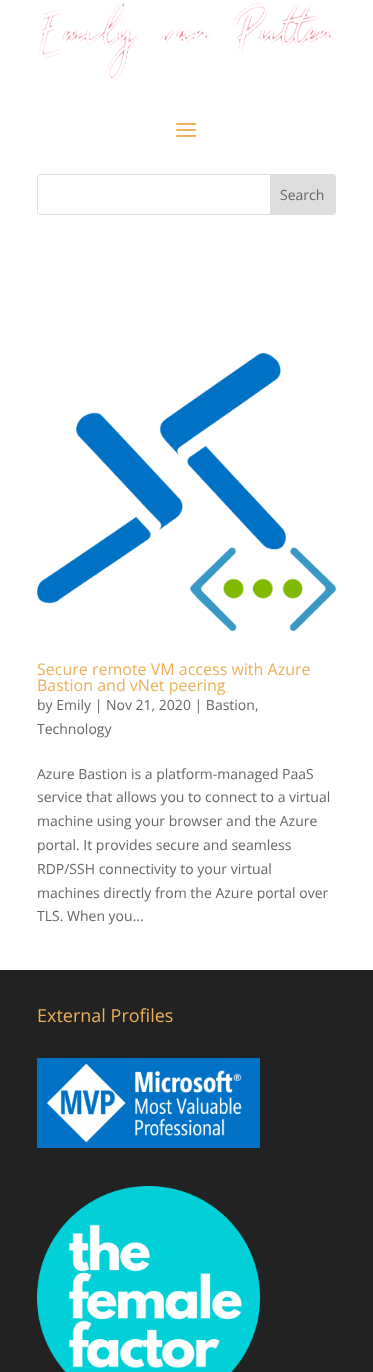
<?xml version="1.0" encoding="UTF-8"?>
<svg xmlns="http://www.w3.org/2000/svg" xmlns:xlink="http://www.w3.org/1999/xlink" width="373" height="1372">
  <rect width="100%" height="100%" fill="#ffffff" />
  <image x="39" y="3" width="295" height="78" xlink:href="image1.png" />
  <image x="176" y="122" width="20" height="15" xlink:href="image2.png" />
  <rect x="37.5" y="174.5" width="298" height="40" rx="2.5" fill="none" stroke="#dddddd" />
  <path d="M 270 175 h 63 c 1 0 2 1 2 2 v 35 c 0 1 -1 2 -2 2 h -63 z" fill="#dddddd" />
  <image x="37" y="353" width="299" height="278" xlink:href="image3.png" />
  <rect y="970" width="373" height="402" fill="#222222" />
  <image x="37" y="1058" width="223" height="90" xlink:href="image4.png" />
  <image x="37" y="1186" width="223" height="186" xlink:href="image5.png" />
  <text x="280" y="200" style="font-family: Open Sans; font-size: 14px; fill: #666666">Search</text>
  <text x="37" y="675" style="font-family: Open Sans; font-size: 16px; fill: #edb059">Secure remote VM access with Azure</text>
  <text x="37" y="691" style="font-family: Open Sans; font-size: 16px; fill: #edb059">Bastion and vNet peering</text>
  <text x="37" y="710" style="font-family: Open Sans; font-size: 14px; fill: #666666">by Emily | Nov 21, 2020 | Bastion,</text>
  <text x="37" y="734" style="font-family: Open Sans; font-size: 14px; fill: #666666">Technology</text>
  <text x="37" y="779" style="font-family: Open Sans; font-size: 14px; fill: #666666">Azure Bastion is a platform-managed PaaS</text>
  <text x="37" y="802" style="font-family: Open Sans; font-size: 14px; fill: #666666">service that allows you to connect to a virtual</text>
  <text x="37" y="826" style="font-family: Open Sans; font-size: 14px; fill: #666666">machine using your browser and the Azure</text>
  <text x="37" y="850" style="font-family: Open Sans; font-size: 14px; fill: #666666">portal. It provides secure and seamless</text>
  <text x="37" y="874" style="font-family: Open Sans; font-size: 14px; fill: #666666">RDP/SSH connectivity to your virtual</text>
  <text x="37" y="898" style="font-family: Open Sans; font-size: 14px; fill: #666666">machines directly from the Azure portal over</text>
  <text x="37" y="921" style="font-family: Open Sans; font-size: 14px; fill: #666666">TLS. When you...</text>
  <text x="37" y="1022" style="font-family: Open Sans; font-size: 18px; fill: #edb059">External Profiles</text>
</svg>
